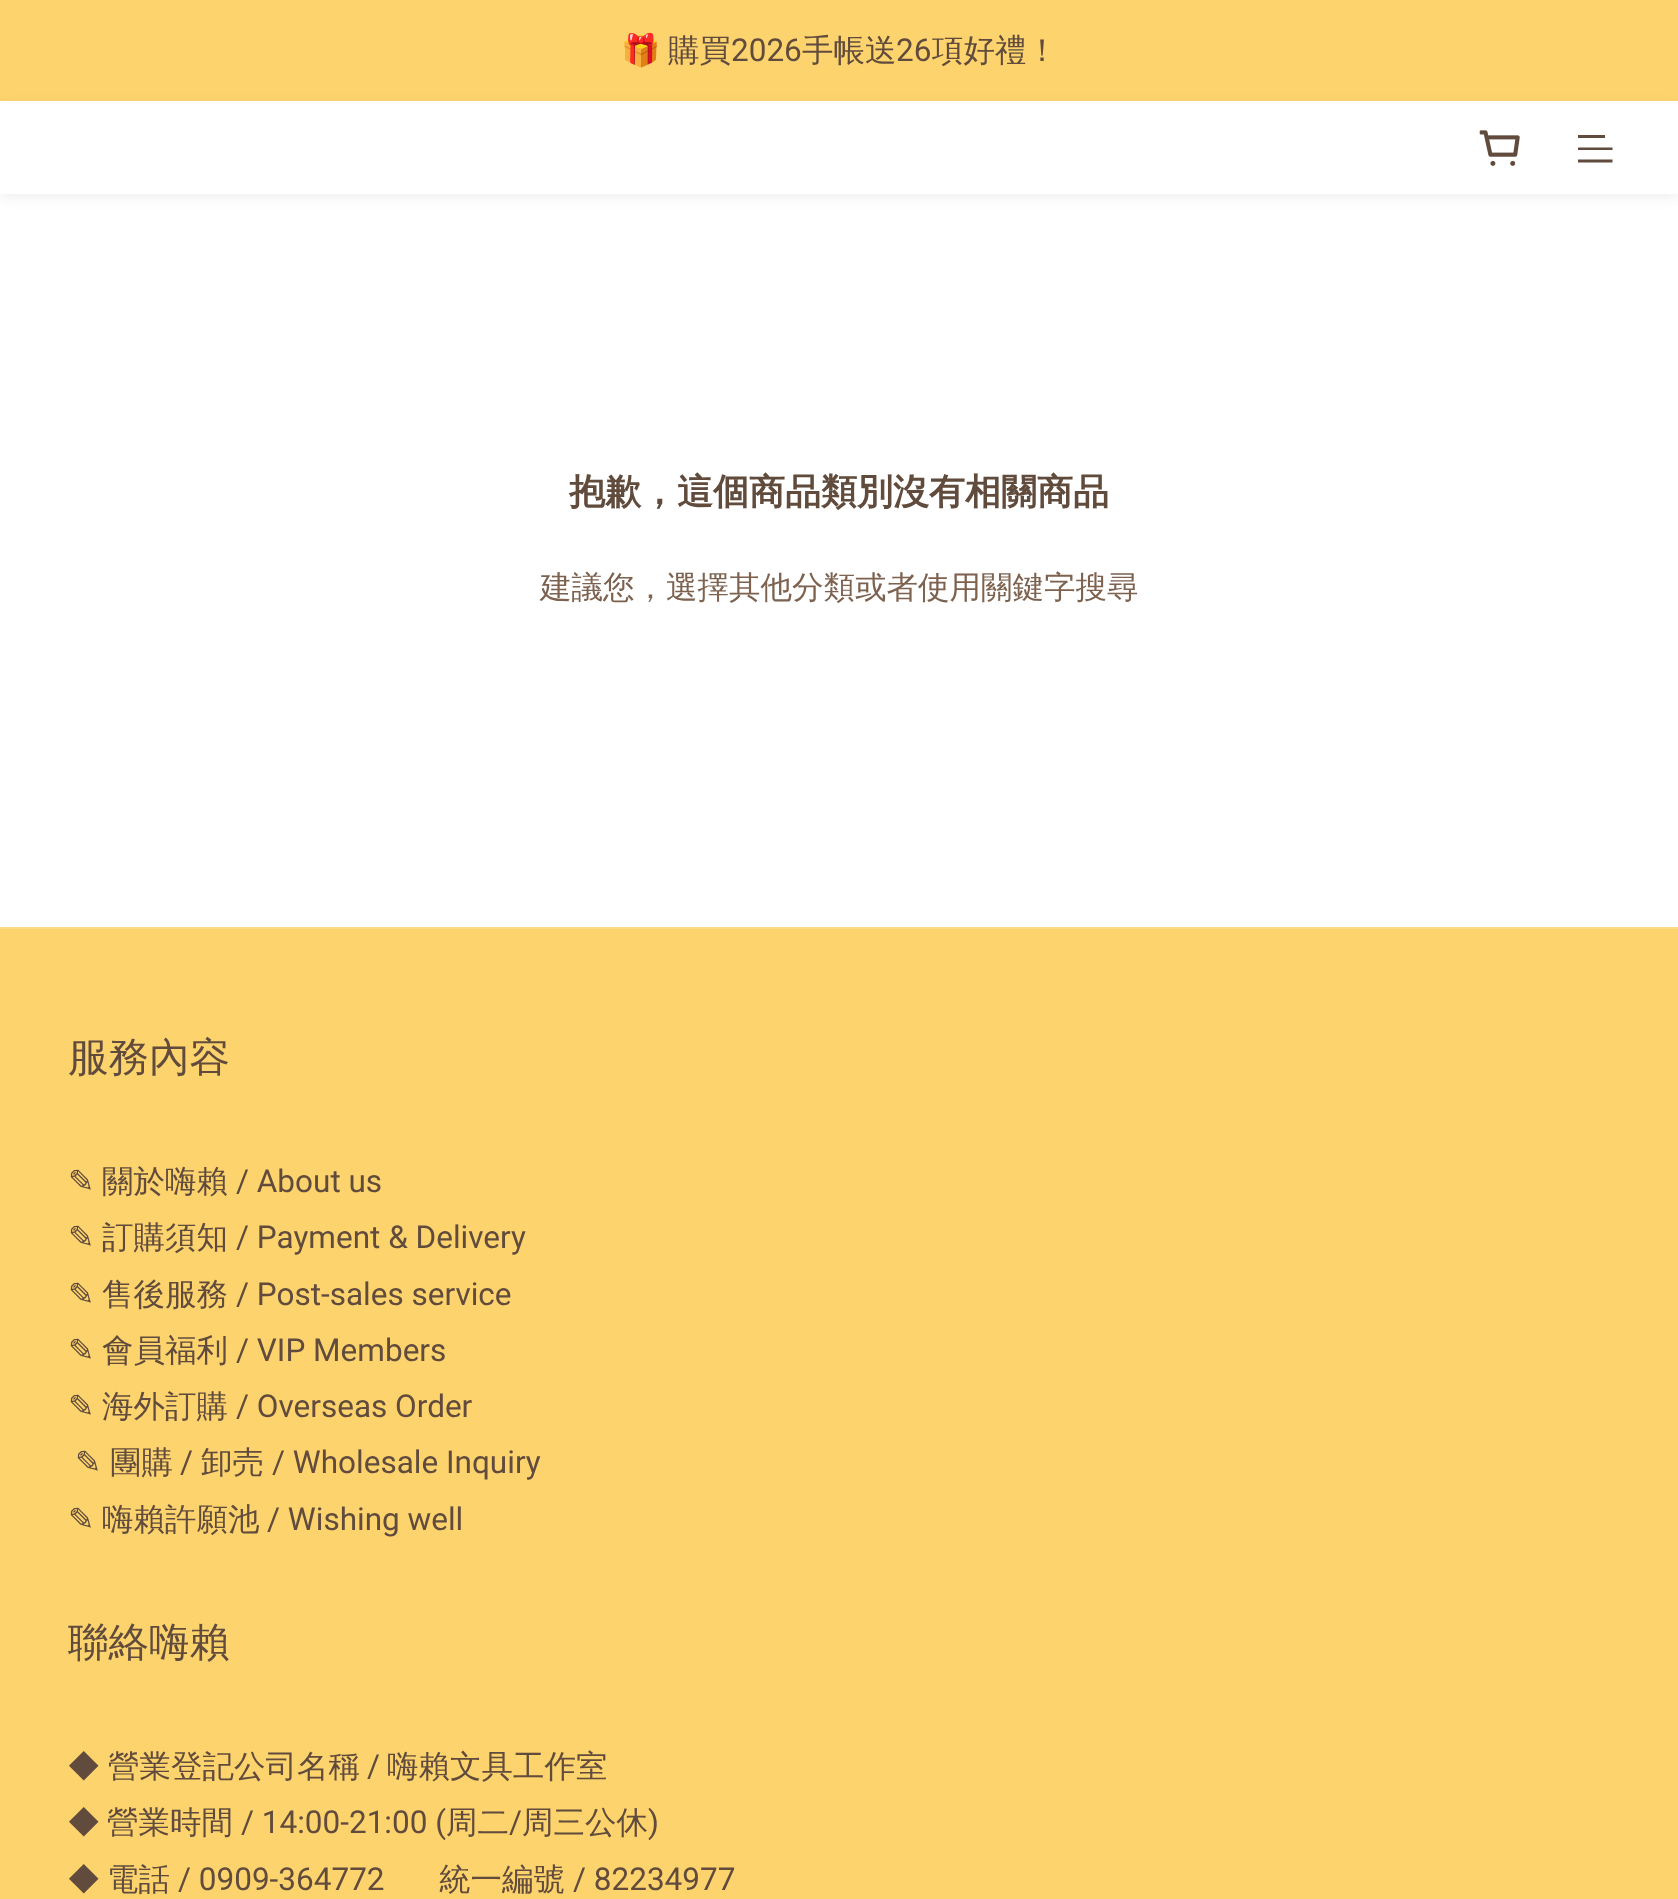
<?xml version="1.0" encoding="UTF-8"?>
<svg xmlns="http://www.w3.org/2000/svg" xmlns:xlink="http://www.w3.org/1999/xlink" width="1678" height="1899">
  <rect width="100%" height="100%" fill="#ffffff" />
  <rect width="1678" height="101" fill="#fdd36e" />
  <rect y="106" width="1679" height="92" fill="#000000" fill-opacity="0.06" filter="blur(7px)" />
  <rect y="101" width="1678" height="93" fill="#ffffff" />
  <image x="1479" y="130" width="41" height="36" xlink:href="image1.png" />
  <path d="M 1612.5 150 v -2.5 h -34.5 v 2.5 z m -7.5 -12 v -3 h -27 v 3 z m 7.5 24.5 v -3 h -34.5 v 3 z" fill="#604b3c" />
  <rect y="929" width="1678" height="970" fill="#fdd36e" />
  <rect y="927" width="1678" height="2" fill="#fdda85" />
  <text x="621" y="61" style="font-family: Noto Color Emoji; font-size: 31.5px; fill: #604b3c">🎁</text>
  <text x="668" y="61" style="font-family: WenQuanYi Zen Hei; font-size: 31.5px; font-weight: 500; fill: #604b3c">購買</text>
  <text x="731" y="61" style="font-family: 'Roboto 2'; font-size: 31.5px; fill: #604b3c">2026</text>
  <text x="802" y="61" style="font-family: WenQuanYi Zen Hei; font-size: 31.5px; font-weight: 500; fill: #604b3c">手帳送</text>
  <text x="896" y="61" style="font-family: 'Roboto 2'; font-size: 31.5px; fill: #604b3c">26</text>
  <text x="932" y="61" style="font-family: WenQuanYi Zen Hei; font-size: 31.5px; font-weight: 500; fill: #604b3c">項好禮！</text>
  <text x="569" y="504" style="font-family: WenQuanYi Zen Hei; font-size: 36px; font-weight: bold; fill: #604b3c">抱歉，這個商品類別沒有相關商品</text>
  <text x="540" y="598" style="font-family: WenQuanYi Zen Hei; font-size: 31.5px; font-weight: 500; fill: #7d624f">建議您，選擇其他分類或者使用關鍵字搜尋</text>
  <text x="68" y="1071" style="font-family: WenQuanYi Zen Hei; font-size: 40.5px; font-weight: 500; fill: #604b3c">服務內容</text>
  <text x="68" y="1192" style="font-family: DejaVu Sans; font-size: 31.5px; fill: #604b3c">✎</text>
  <text x="102" y="1192" style="font-family: WenQuanYi Zen Hei; font-size: 31.5px; font-weight: 500; fill: #604b3c">關於嗨賴</text>
  <text x="236" y="1192" style="font-family: Roboto; font-size: 31.5px; fill: #604b3c">/ About us</text>
  <text x="68" y="1248" style="font-family: DejaVu Sans; font-size: 31.5px; fill: #604b3c">✎</text>
  <text x="102" y="1248" style="font-family: WenQuanYi Zen Hei; font-size: 31.5px; font-weight: 500; fill: #604b3c">訂購須知</text>
  <text x="236" y="1248" style="font-family: Roboto; font-size: 31.5px; fill: #604b3c">/ Payment &amp; Delivery</text>
  <text x="68" y="1305" style="font-family: DejaVu Sans; font-size: 31.5px; fill: #604b3c">✎</text>
  <text x="102" y="1305" style="font-family: WenQuanYi Zen Hei; font-size: 31.5px; font-weight: 500; fill: #604b3c">售後服務</text>
  <text x="236" y="1305" style="font-family: Roboto; font-size: 31.5px; fill: #604b3c">/ Post-sales service</text>
  <text x="68" y="1361" style="font-family: DejaVu Sans; font-size: 31.5px; fill: #604b3c">✎</text>
  <text x="102" y="1361" style="font-family: WenQuanYi Zen Hei; font-size: 31.5px; font-weight: 500; fill: #604b3c">會員福利</text>
  <text x="236" y="1361" style="font-family: Roboto; font-size: 31.5px; fill: #604b3c">/ VIP Members</text>
  <text x="68" y="1417" style="font-family: DejaVu Sans; font-size: 31.5px; fill: #604b3c">✎</text>
  <text x="102" y="1417" style="font-family: WenQuanYi Zen Hei; font-size: 31.5px; font-weight: 500; fill: #604b3c">海外訂購</text>
  <text x="236" y="1417" style="font-family: Roboto; font-size: 31.5px; fill: #604b3c">/ Overseas Order</text>
  <text x="75" y="1473" style="font-family: DejaVu Sans; font-size: 31.5px; fill: #604b3c">✎</text>
  <text x="110" y="1473" style="font-family: WenQuanYi Zen Hei; font-size: 31.5px; font-weight: 500; fill: #604b3c">團購</text>
  <text x="180" y="1473" style="font-family: Roboto; font-size: 31.5px; fill: #604b3c">/</text>
  <text x="201" y="1473" style="font-family: WenQuanYi Zen Hei; font-size: 31.5px; font-weight: 500; fill: #604b3c">卸売</text>
  <text x="272" y="1473" style="font-family: Roboto; font-size: 31.5px; fill: #604b3c">/ Wholesale Inquiry</text>
  <text x="68" y="1530" style="font-family: DejaVu Sans; font-size: 31.5px; fill: #604b3c">✎</text>
  <text x="102" y="1530" style="font-family: WenQuanYi Zen Hei; font-size: 31.5px; font-weight: 500; fill: #604b3c">嗨賴許願池</text>
  <text x="267" y="1530" style="font-family: Roboto; font-size: 31.5px; fill: #604b3c">/ Wishing well</text>
  <text x="68" y="1656" style="font-family: WenQuanYi Zen Hei; font-size: 40.5px; font-weight: 500; fill: #604b3c">聯絡嗨賴</text>
  <text x="68" y="1777" word-spacing="-1" style="font-family: WenQuanYi Zen Hei; font-size: 31.5px; font-weight: 500; fill: #604b3c">◆ 營業登記公司名稱</text>
  <text x="367" y="1777" style="font-family: Roboto; font-size: 31.5px; fill: #604b3c">/</text>
  <text x="387" y="1777" style="font-family: WenQuanYi Zen Hei; font-size: 31.5px; font-weight: 500; fill: #604b3c">嗨賴文具工作室</text>
  <text x="68" y="1833" style="font-family: WenQuanYi Zen Hei; font-size: 31.5px; font-weight: 500; fill: #604b3c">◆</text>
  <text x="107" y="1833" style="font-family: WenQuanYi Zen Hei; font-size: 31.5px; font-weight: 500; fill: #604b3c">營業時間</text>
  <text x="241" y="1833" style="font-family: Roboto; font-size: 31.5px; fill: #604b3c">/ 14:00-21:00 (</text>
  <text x="446" y="1833" style="font-family: WenQuanYi Zen Hei; font-size: 31.5px; font-weight: 500; fill: #604b3c">周二</text>
  <text x="509" y="1833" style="font-family: Roboto; font-size: 31.5px; fill: #604b3c">/</text>
  <text x="522" y="1833" style="font-family: WenQuanYi Zen Hei; font-size: 31.5px; font-weight: 500; fill: #604b3c">周三公休</text>
  <text x="648" y="1833" style="font-family: Roboto; font-size: 31.5px; fill: #604b3c">)</text>
  <text x="68" y="1890" style="font-family: WenQuanYi Zen Hei; font-size: 31.5px; font-weight: 500; fill: #604b3c">◆</text>
  <text x="107" y="1890" style="font-family: WenQuanYi Zen Hei; font-size: 31.5px; font-weight: 500; fill: #604b3c">電話</text>
  <text x="178" y="1890" style="font-family: Roboto; font-size: 31.5px; fill: #604b3c">/ 0909-364772</text>
  <text x="439" y="1890" style="font-family: WenQuanYi Zen Hei; font-size: 31.5px; font-weight: 500; fill: #604b3c">統一編號</text>
  <text x="573" y="1890" style="font-family: Roboto; font-size: 31.5px; fill: #604b3c">/ 82234977</text>
</svg>
